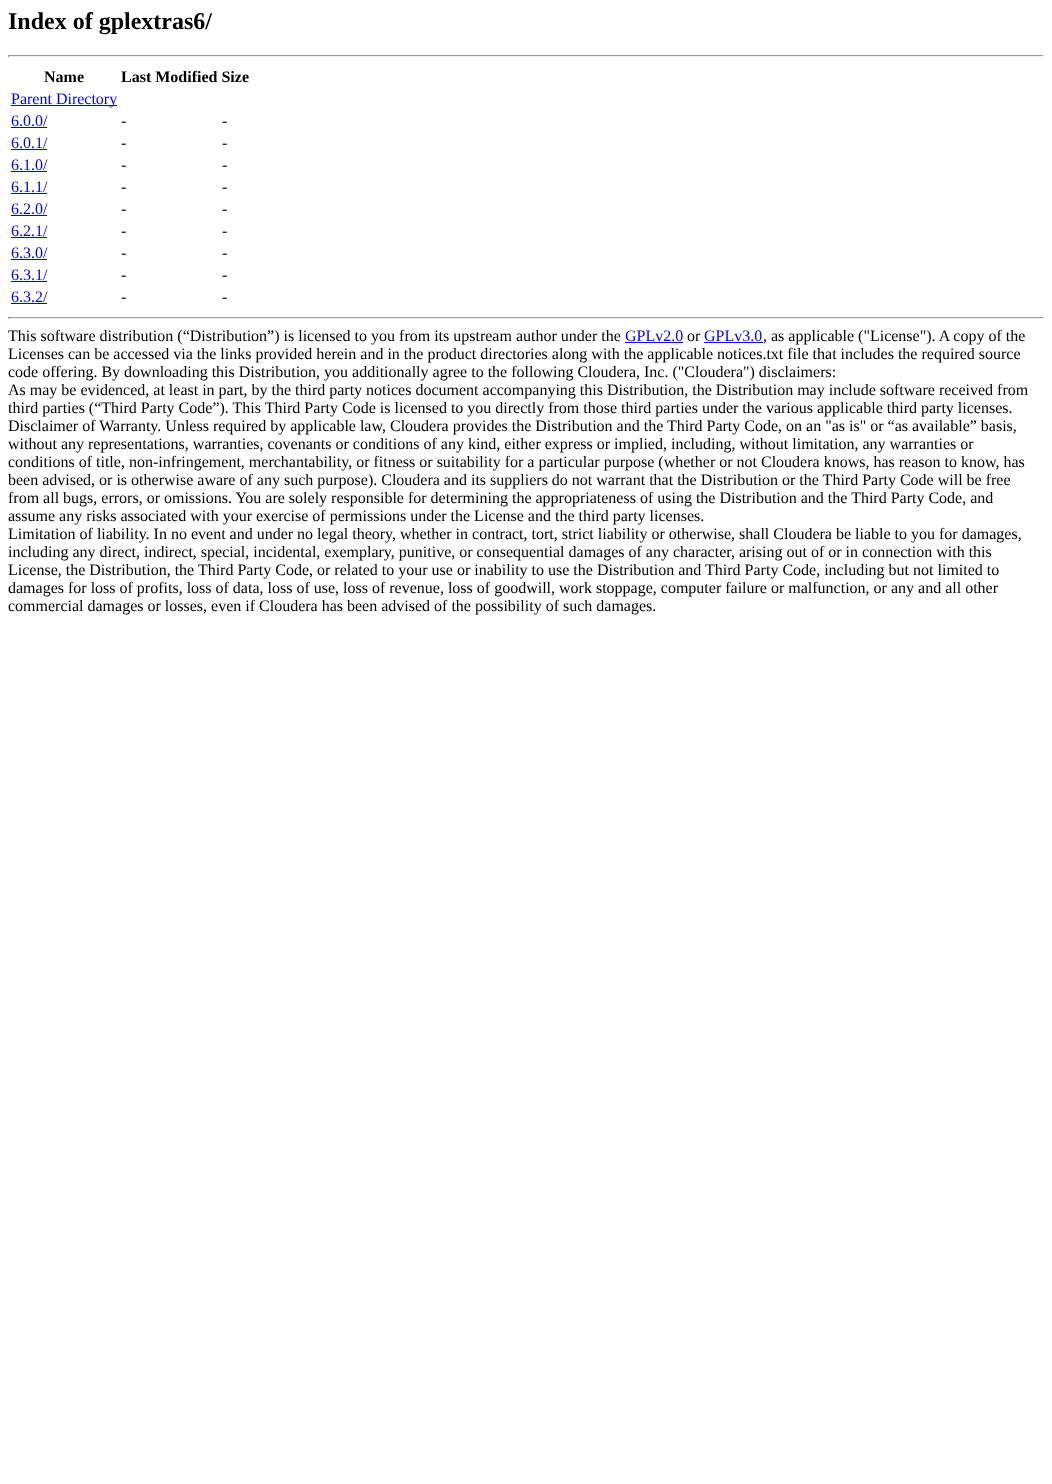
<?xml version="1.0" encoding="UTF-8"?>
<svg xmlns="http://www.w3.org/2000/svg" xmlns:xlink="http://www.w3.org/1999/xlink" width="1052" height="1484">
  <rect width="100%" height="100%" fill="#ffffff" />
  <rect x="8" y="55" width="1036" height="1" fill="#9f9f9f" />
  <rect x="1043" y="55" width="1" height="2" fill="#eeeeee" />
  <rect x="8" y="56" width="1036" height="1" fill="#eeeeee" />
  <rect x="8" y="55" width="1" height="2" fill="#9f9f9f" />
  <rect x="11" y="105" width="106" height="1" fill="#0000ee" />
  <rect x="11" y="127" width="36" height="1" fill="#0000ee" />
  <rect x="11" y="149" width="36" height="1" fill="#0000ee" />
  <rect x="11" y="171" width="36" height="1" fill="#0000ee" />
  <rect x="11" y="193" width="36" height="1" fill="#0000ee" />
  <rect x="11" y="215" width="36" height="1" fill="#0000ee" />
  <rect x="11" y="237" width="36" height="1" fill="#0000ee" />
  <rect x="11" y="259" width="36" height="1" fill="#0000ee" />
  <rect x="11" y="281" width="36" height="1" fill="#0000ee" />
  <rect x="11" y="303" width="36" height="1" fill="#0000ee" />
  <rect x="8" y="317" width="1036" height="1" fill="#9f9f9f" />
  <rect x="1043" y="317" width="1" height="2" fill="#eeeeee" />
  <rect x="8" y="318" width="1036" height="1" fill="#eeeeee" />
  <rect x="8" y="317" width="1" height="2" fill="#9f9f9f" />
  <rect x="625" y="342" width="58" height="1" fill="#0000ee" />
  <rect x="704" y="342" width="59" height="1" fill="#0000ee" />
  <text x="8" y="29" style="font-family: Liberation Serif; font-size: 24px; font-weight: bold; fill: #000000">Index of gplextras6/</text>
  <text x="44" y="82" style="font-family: Liberation Serif; font-size: 16px; font-weight: bold; fill: #000000">Name</text>
  <text x="121" y="82" style="font-family: Liberation Serif; font-size: 16px; font-weight: bold; fill: #000000">Last Modified Size</text>
  <text x="11" y="104" style="font-family: Liberation Serif; font-size: 16px; fill: #0000ee">Parent Directory</text>
  <text x="11" y="126" style="font-family: Liberation Serif; font-size: 16px; fill: #0000ee">6.0.0/</text>
  <text x="121" y="126" style="font-family: Liberation Serif; font-size: 16px; fill: #000000">-</text>
  <text x="222" y="126" style="font-family: Liberation Serif; font-size: 16px; fill: #000000">-</text>
  <text x="11" y="148" style="font-family: Liberation Serif; font-size: 16px; fill: #0000ee">6.0.1/</text>
  <text x="121" y="148" style="font-family: Liberation Serif; font-size: 16px; fill: #000000">-</text>
  <text x="222" y="148" style="font-family: Liberation Serif; font-size: 16px; fill: #000000">-</text>
  <text x="11" y="170" style="font-family: Liberation Serif; font-size: 16px; fill: #0000ee">6.1.0/</text>
  <text x="121" y="170" style="font-family: Liberation Serif; font-size: 16px; fill: #000000">-</text>
  <text x="222" y="170" style="font-family: Liberation Serif; font-size: 16px; fill: #000000">-</text>
  <text x="11" y="192" style="font-family: Liberation Serif; font-size: 16px; fill: #0000ee">6.1.1/</text>
  <text x="121" y="192" style="font-family: Liberation Serif; font-size: 16px; fill: #000000">-</text>
  <text x="222" y="192" style="font-family: Liberation Serif; font-size: 16px; fill: #000000">-</text>
  <text x="11" y="214" style="font-family: Liberation Serif; font-size: 16px; fill: #0000ee">6.2.0/</text>
  <text x="121" y="214" style="font-family: Liberation Serif; font-size: 16px; fill: #000000">-</text>
  <text x="222" y="214" style="font-family: Liberation Serif; font-size: 16px; fill: #000000">-</text>
  <text x="11" y="236" style="font-family: Liberation Serif; font-size: 16px; fill: #0000ee">6.2.1/</text>
  <text x="121" y="236" style="font-family: Liberation Serif; font-size: 16px; fill: #000000">-</text>
  <text x="222" y="236" style="font-family: Liberation Serif; font-size: 16px; fill: #000000">-</text>
  <text x="11" y="258" style="font-family: Liberation Serif; font-size: 16px; fill: #0000ee">6.3.0/</text>
  <text x="121" y="258" style="font-family: Liberation Serif; font-size: 16px; fill: #000000">-</text>
  <text x="222" y="258" style="font-family: Liberation Serif; font-size: 16px; fill: #000000">-</text>
  <text x="11" y="280" style="font-family: Liberation Serif; font-size: 16px; fill: #0000ee">6.3.1/</text>
  <text x="121" y="280" style="font-family: Liberation Serif; font-size: 16px; fill: #000000">-</text>
  <text x="222" y="280" style="font-family: Liberation Serif; font-size: 16px; fill: #000000">-</text>
  <text x="11" y="302" style="font-family: Liberation Serif; font-size: 16px; fill: #0000ee">6.3.2/</text>
  <text x="121" y="302" style="font-family: Liberation Serif; font-size: 16px; fill: #000000">-</text>
  <text x="222" y="302" style="font-family: Liberation Serif; font-size: 16px; fill: #000000">-</text>
  <text x="8" y="341" style="font-family: Liberation Serif; font-size: 16px; fill: #000000">This software distribution (“Distribution”) is licensed to you from its upstream author under the</text>
  <text x="625" y="341" style="font-family: Liberation Serif; font-size: 16px; fill: #0000ee">GPLv2.0</text>
  <text x="687" y="341" style="font-family: Liberation Serif; font-size: 16px; fill: #000000">or</text>
  <text x="704" y="341" style="font-family: Liberation Serif; font-size: 16px; fill: #0000ee">GPLv3.0</text>
  <text x="763" y="341" style="font-family: Liberation Serif; font-size: 16px; fill: #000000">, as applicable ("License"). A copy of the</text>
  <text x="8" y="359" style="font-family: Liberation Serif; font-size: 16px; fill: #000000">Licenses can be accessed via the links provided herein and in the product directories along with the applicable notices.txt file that includes the required source</text>
  <text x="8" y="377" style="font-family: Liberation Serif; font-size: 16px; fill: #000000">code offering. By downloading this Distribution, you additionally agree to the following Cloudera, Inc. ("Cloudera") disclaimers:</text>
  <text x="8" y="395" style="font-family: Liberation Serif; font-size: 16px; fill: #000000">As may be evidenced, at least in part, by the third party notices document accompanying this Distribution, the Distribution may include software received from</text>
  <text x="8" y="413" style="font-family: Liberation Serif; font-size: 16px; fill: #000000">third parties (“Third Party Code”). This Third Party Code is licensed to you directly from those third parties under the various applicable third party licenses.</text>
  <text x="8" y="431" style="font-family: Liberation Serif; font-size: 16px; fill: #000000">Disclaimer of Warranty. Unless required by applicable law, Cloudera provides the Distribution and the Third Party Code, on an "as is" or “as available” basis,</text>
  <text x="8" y="449" style="font-family: Liberation Serif; font-size: 16px; fill: #000000">without any representations, warranties, covenants or conditions of any kind, either express or implied, including, without limitation, any warranties or</text>
  <text x="8" y="467" style="font-family: Liberation Serif; font-size: 16px; fill: #000000">conditions of title, non-infringement, merchantability, or fitness or suitability for a particular purpose (whether or not Cloudera knows, has reason to know, has</text>
  <text x="8" y="485" style="font-family: Liberation Serif; font-size: 16px; fill: #000000">been advised, or is otherwise aware of any such purpose). Cloudera and its suppliers do not warrant that the Distribution or the Third Party Code will be free</text>
  <text x="8" y="503" style="font-family: Liberation Serif; font-size: 16px; fill: #000000">from all bugs, errors, or omissions. You are solely responsible for determining the appropriateness of using the Distribution and the Third Party Code, and</text>
  <text x="8" y="521" style="font-family: Liberation Serif; font-size: 16px; fill: #000000">assume any risks associated with your exercise of permissions under the License and the third party licenses.</text>
  <text x="8" y="539" style="font-family: Liberation Serif; font-size: 16px; fill: #000000">Limitation of liability. In no event and under no legal theory, whether in contract, tort, strict liability or otherwise, shall Cloudera be liable to you for damages,</text>
  <text x="8" y="557" style="font-family: Liberation Serif; font-size: 16px; fill: #000000">including any direct, indirect, special, incidental, exemplary, punitive, or consequential damages of any character, arising out of or in connection with this</text>
  <text x="8" y="575" style="font-family: Liberation Serif; font-size: 16px; fill: #000000">License, the Distribution, the Third Party Code, or related to your use or inability to use the Distribution and Third Party Code, including but not limited to</text>
  <text x="8" y="593" style="font-family: Liberation Serif; font-size: 16px; fill: #000000">damages for loss of profits, loss of data, loss of use, loss of revenue, loss of goodwill, work stoppage, computer failure or malfunction, or any and all other</text>
  <text x="8" y="611" style="font-family: Liberation Serif; font-size: 16px; fill: #000000">commercial damages or losses, even if Cloudera has been advised of the possibility of such damages.</text>
</svg>
